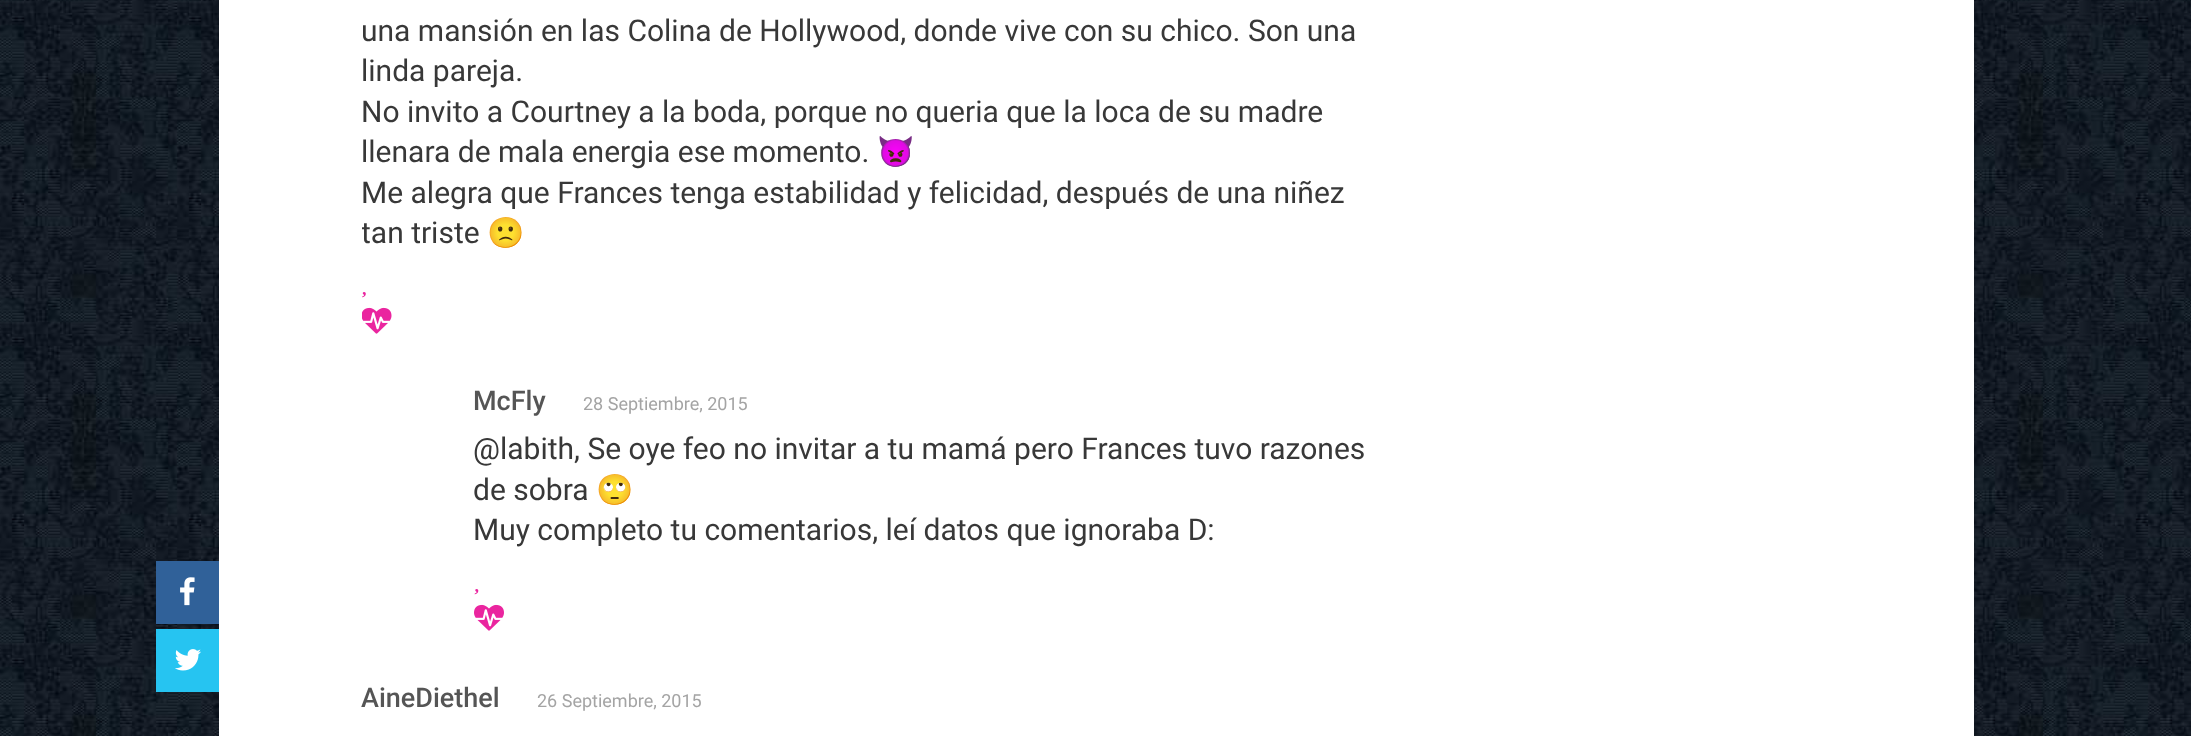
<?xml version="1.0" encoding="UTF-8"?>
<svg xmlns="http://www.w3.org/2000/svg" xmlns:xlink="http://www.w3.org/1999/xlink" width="2191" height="736">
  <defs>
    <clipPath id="clip1"><rect x="362" width="1020" height="342" /></clipPath>
  </defs>
  <rect width="100%" height="100%" fill="#ffffff" />
  <image x="0" y="0" width="2191" height="736" xlink:href="image1.png" />
  <rect x="219" width="1755" height="736" fill="#ffffff" />
  <rect x="156" y="561" width="63" height="63" fill="#306199" />
  <image x="180" y="577" width="15" height="29" xlink:href="image2.png" />
  <rect x="156" y="629" width="63" height="63" fill="#26c4f1" />
  <image x="175" y="649" width="26" height="22" xlink:href="image3.png" />
  <image x="362" y="292" width="4" height="6" xlink:href="image4.png" />
  <image x="362" y="307" width="30" height="27" xlink:href="image5.png" />
  <image x="474" y="589" width="5" height="6" xlink:href="image6.png" />
  <image x="474" y="604" width="30" height="27" xlink:href="image7.png" />
  <text x="361" y="41" style="font-family: Roboto; font-size: 30px; fill: #383838">una mansión en las Colina de Hollywood, donde vive con su chico. Son una</text>
  <text x="361" y="81" style="font-family: Roboto; font-size: 30px; fill: #383838">linda pareja.</text>
  <text x="361" y="122" style="font-family: Roboto; font-size: 30px; fill: #383838">No invito a Courtney a la boda, porque no queria que la loca de su madre</text>
  <text x="361" y="162" style="font-family: Roboto; font-size: 30px; fill: #383838">llenara de mala energia ese momento.</text>
  <text x="877" y="162" style="font-family: Noto Color Emoji; font-size: 30px; fill: #383838">👿</text>
  <text x="361" y="203" style="font-family: Roboto; font-size: 30px; fill: #383838">Me alegra que Frances tenga estabilidad y felicidad, después de una niñez</text>
  <g clip-path="url(#clip1)">
    <text x="361" y="243" style="font-family: Roboto; font-size: 30px; fill: #383838">tan triste</text>
  </g>
  <text x="487" y="243" style="font-family: Noto Color Emoji; font-size: 30px; fill: #383838">🙁</text>
  <text x="473" y="410" style="font-family: Roboto; font-size: 27px; font-weight: 500; fill: #555555">McFly</text>
  <text x="583" y="410" style="font-family: Roboto; font-size: 18px; fill: #a4a4a4">28 Septiembre, 2015</text>
  <text x="473" y="459" style="font-family: Roboto; font-size: 30px; fill: #383838">@labith, Se oye feo no invitar a tu mamá pero Frances tuvo razones</text>
  <text x="473" y="500" style="font-family: Roboto; font-size: 30px; fill: #383838">de sobra</text>
  <text x="596" y="500" style="font-family: Noto Color Emoji; font-size: 30px; fill: #383838">🙄</text>
  <text x="473" y="540" style="font-family: Roboto; font-size: 30px; fill: #383838">Muy completo tu comentarios, leí datos que ignoraba D:</text>
  <text x="361" y="707" style="font-family: Roboto; font-size: 27px; font-weight: 500; fill: #555555">AineDiethel</text>
  <text x="537" y="707" style="font-family: Roboto; font-size: 18px; fill: #a4a4a4">26 Septiembre, 2015</text>
</svg>
